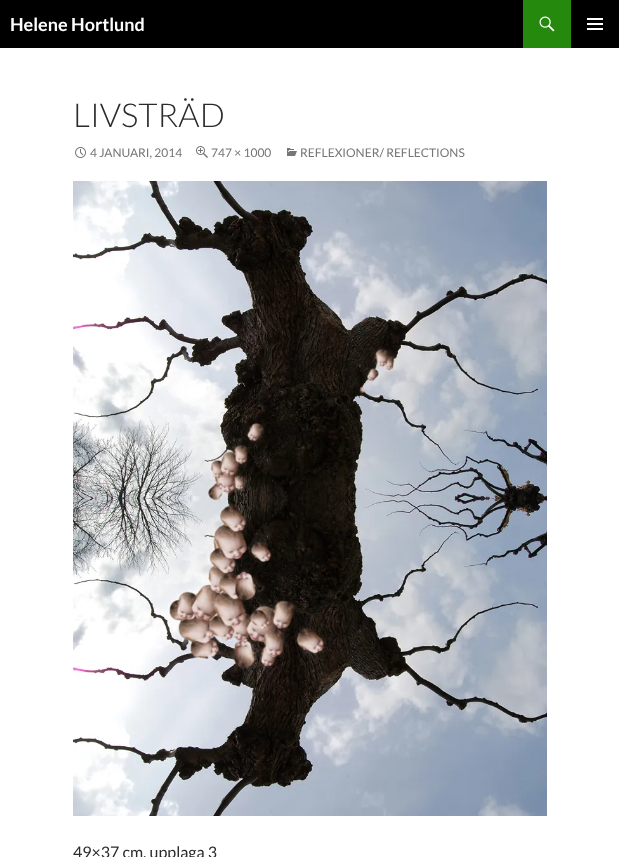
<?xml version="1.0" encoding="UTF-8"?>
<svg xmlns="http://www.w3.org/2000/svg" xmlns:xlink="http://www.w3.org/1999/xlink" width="619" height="857">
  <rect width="100%" height="100%" fill="#ffffff" />
  <rect width="619" height="48" fill="#000000" />
  <rect x="523" width="48" height="48" fill="#24890d" />
  <image x="539" y="16" width="16" height="16" xlink:href="image1.png" />
  <image x="587" y="18" width="16" height="12" xlink:href="image2.png" />
  <image x="75" y="147" width="11" height="11" xlink:href="image3.png" />
  <image x="196" y="146" width="12" height="12" xlink:href="image4.png" />
  <image x="287" y="148" width="10" height="8" xlink:href="image5.png" />
  <image x="73" y="181" width="474" height="635" xlink:href="image6.png" />
  <text x="10" y="31" style="font-family: Lato; font-size: 18px; font-weight: bold; fill: #ffffff">Helene Hortlund</text>
  <text x="73" y="127" style="font-family: Lato; font-size: 33px; font-weight: 300; fill: #2b2b2b">LIVSTRÄD</text>
  <text x="90" y="157" style="font-family: Lato; font-size: 12px; fill: #767676">4 JANUARI, 2014</text>
  <text x="211" y="157" style="font-family: Lato; font-size: 12px; fill: #767676">747 × 1000</text>
  <text x="300" y="157" style="font-family: Lato; font-size: 12px; fill: #767676">REFLEXIONER/ REFLECTIONS</text>
  <text x="73" y="858" style="font-family: Lato; font-size: 16px; fill: #2b2b2b">49×37 cm, upplaga 3</text>
</svg>
